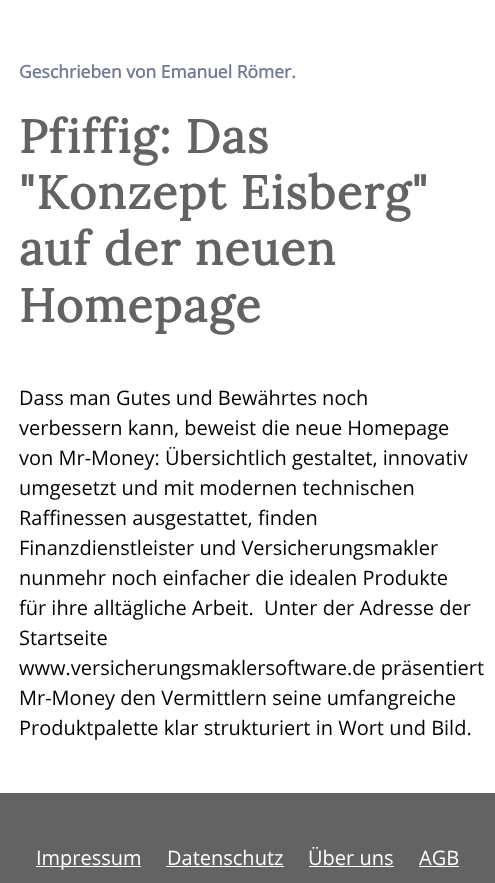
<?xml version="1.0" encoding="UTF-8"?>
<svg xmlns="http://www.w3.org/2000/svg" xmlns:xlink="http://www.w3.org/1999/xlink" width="495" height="883">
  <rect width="100%" height="100%" fill="#ffffff" />
  <rect y="793" width="495" height="90" fill="#636363" />
  <rect x="36" y="866" width="105" height="1" fill="#ffffff" />
  <rect x="166" y="866" width="118" height="1" fill="#ffffff" />
  <rect x="309" y="866" width="85" height="1" fill="#ffffff" />
  <rect x="419" y="866" width="40" height="1" fill="#ffffff" />
  <text x="19" y="78" style="font-family: Open Sans; font-size: 17.5px; font-weight: bold; fill: #747a96">Geschrieben von Emanuel Römer.</text>
  <text x="19" y="153" style="font-family: Lora; font-size: 46.75px; font-weight: bold; letter-spacing: 1.25px; fill: #636363">Pfiffig: Das</text>
  <text x="19" y="209" style="font-family: Lora; font-size: 46.75px; font-weight: bold; letter-spacing: 1.25px; fill: #636363">"Konzept Eisberg"</text>
  <text x="19" y="265" style="font-family: Lora; font-size: 46.75px; font-weight: bold; letter-spacing: 1.25px; fill: #636363">auf der neuen</text>
  <text x="19" y="322" style="font-family: Lora; font-size: 46.75px; font-weight: bold; letter-spacing: 1.25px; fill: #636363">Homepage</text>
  <text x="19" y="405" style="font-family: Open Sans; font-size: 20px; fill: #000000">Dass man Gutes und Bewährtes noch</text>
  <text x="19" y="435" style="font-family: Open Sans; font-size: 20px; fill: #000000">verbessern kann, beweist die neue Homepage</text>
  <text x="19" y="465" style="font-family: Open Sans; font-size: 20px; fill: #000000">von Mr-Money: Übersichtlich gestaltet, innovativ</text>
  <text x="19" y="495" style="font-family: Open Sans; font-size: 20px; fill: #000000">umgesetzt und mit modernen technischen</text>
  <text x="19" y="525" style="font-family: Open Sans; font-size: 20px; fill: #000000">Raffinessen ausgestattet, finden</text>
  <text x="19" y="555" style="font-family: Open Sans; font-size: 20px; fill: #000000">Finanzdienstleister und Versicherungsmakler</text>
  <text x="19" y="585" style="font-family: Open Sans; font-size: 20px; fill: #000000">nunmehr noch einfacher die idealen Produkte</text>
  <text x="19" y="615" style="font-family: Open Sans; font-size: 20px; fill: #000000" xml:space="preserve">für ihre alltägliche Arbeit.  Unter der Adresse der</text>
  <text x="19" y="645" style="font-family: Open Sans; font-size: 20px; fill: #000000">Startseite</text>
  <text x="19" y="675" style="font-family: Open Sans; font-size: 20px; fill: #000000">www.versicherungsmaklersoftware.de präsentiert</text>
  <text x="19" y="705" style="font-family: Open Sans; font-size: 20px; fill: #000000">Mr-Money den Vermittlern seine umfangreiche</text>
  <text x="19" y="735" style="font-family: Open Sans; font-size: 20px; fill: #000000">Produktpalette klar strukturiert in Wort und Bild.</text>
  <text x="36" y="865" style="font-family: Open Sans; font-size: 20px; fill: #ffffff">Impressum</text>
  <text x="167" y="865" style="font-family: Open Sans; font-size: 20px; fill: #ffffff">Datenschutz</text>
  <text x="308" y="865" style="font-family: Open Sans; font-size: 20px; fill: #ffffff">Über uns</text>
  <text x="419" y="865" style="font-family: Open Sans; font-size: 20px; fill: #ffffff">AGB</text>
</svg>
